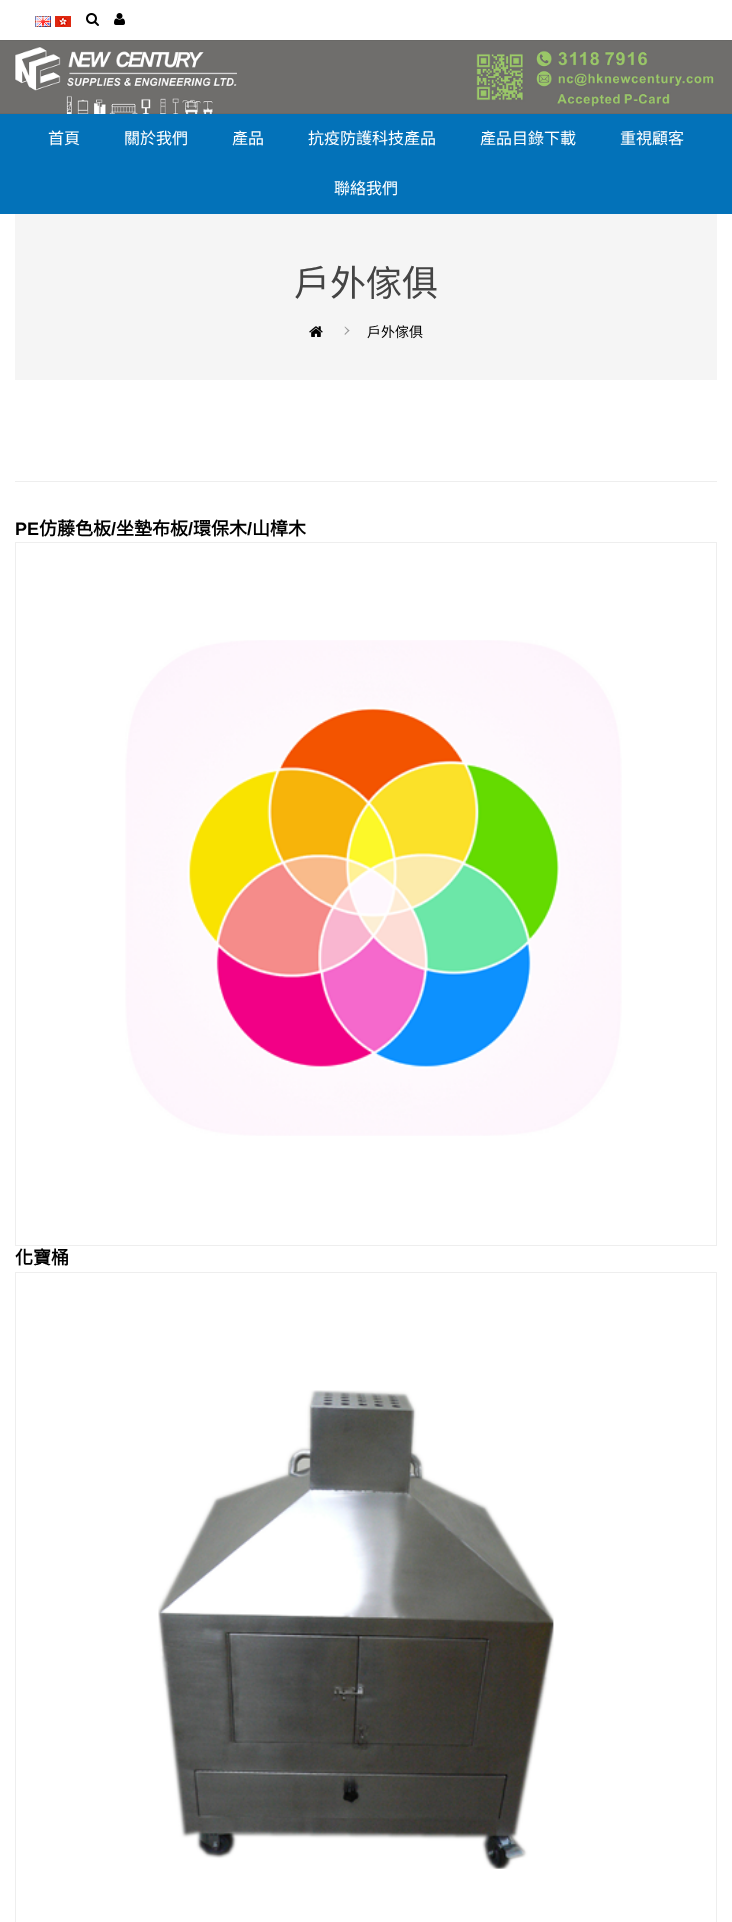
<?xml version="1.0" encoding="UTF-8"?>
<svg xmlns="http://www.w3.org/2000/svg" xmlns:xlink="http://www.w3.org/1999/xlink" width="732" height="1922">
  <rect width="100%" height="100%" fill="#ffffff" />
  <image x="35" y="16" width="16" height="11" xlink:href="image1.png" />
  <image x="55" y="16" width="16" height="11" xlink:href="image2.png" />
  <image x="86" y="13" width="13" height="13" xlink:href="image3.png" />
  <image x="114" y="13" width="11" height="12" xlink:href="image4.png" />
  <image x="0" y="40" width="732" height="74" xlink:href="image5.png" />
  <rect y="114" width="732" height="100" fill="#0372b9" />
  <rect x="15" y="214" width="702" height="166" fill="#f5f5f5" />
  <image x="309" y="326" width="14" height="11" xlink:href="image6.png" />
  <path d="M 344.5 327 l 0.5 -0.5 l 4.5 4 l -1 1 z" fill="#999999" />
  <path d="M 344.5 334 l 4 -4 l 1 0.5 l -4.5 4.5 z" fill="#999999" />
  <rect x="15" y="481" width="702" height="1" fill="#eeeeee" />
  <image x="125" y="640" width="497" height="496" xlink:href="image7.png" />
  <rect x="15.5" y="542.5" width="701" height="703" fill="none" stroke="#eeeeee" />
  <image x="158" y="1390" width="396" height="479" xlink:href="image8.png" />
  <rect x="15.5" y="1272.5" width="701" height="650" fill="none" stroke="#eeeeee" />
  <text x="48" y="144" style="font-family: Noto Sans CJK TC; font-size: 16px; fill: #ffffff">首頁</text>
  <text x="124" y="144" style="font-family: Noto Sans CJK TC; font-size: 16px; fill: #ffffff">關於我們</text>
  <text x="232" y="144" style="font-family: Noto Sans CJK TC; font-size: 16px; fill: #ffffff">產品</text>
  <text x="308" y="144" style="font-family: Noto Sans CJK TC; font-size: 16px; fill: #ffffff">抗疫防護科技產品</text>
  <text x="480" y="144" style="font-family: Noto Sans CJK TC; font-size: 16px; fill: #ffffff">產品目錄下載</text>
  <text x="620" y="144" style="font-family: Noto Sans CJK TC; font-size: 16px; fill: #ffffff">重視顧客</text>
  <text x="334" y="194" style="font-family: Noto Sans CJK TC; font-size: 16px; fill: #ffffff">聯絡我們</text>
  <text x="294" y="296" style="font-family: Noto Sans CJK TC; font-size: 36px; fill: #444444">戶外傢俱</text>
  <text x="367" y="337" style="font-family: Noto Sans CJK TC; font-size: 14px; fill: #000000">戶外傢俱</text>
  <text x="15" y="535" style="font-family: Liberation Sans; font-size: 18px; font-weight: bold; fill: #000000">PE</text>
  <text x="39" y="535" style="font-family: Noto Sans CJK TC; font-size: 18px; font-weight: bold; fill: #000000">仿藤色板</text>
  <text x="111" y="535" style="font-family: Liberation Sans; font-size: 18px; font-weight: bold; fill: #000000">/</text>
  <text x="116" y="535" style="font-family: Noto Sans CJK TC; font-size: 18px; font-weight: bold; fill: #000000">坐墊布板</text>
  <text x="188" y="535" style="font-family: Liberation Sans; font-size: 18px; font-weight: bold; fill: #000000">/</text>
  <text x="193" y="535" style="font-family: Noto Sans CJK TC; font-size: 18px; font-weight: bold; fill: #000000">環保木</text>
  <text x="247" y="535" style="font-family: Liberation Sans; font-size: 18px; font-weight: bold; fill: #000000">/</text>
  <text x="252" y="535" style="font-family: Noto Sans CJK TC; font-size: 18px; font-weight: bold; fill: #000000">山樟木</text>
  <text x="15" y="1264" style="font-family: Noto Sans CJK TC; font-size: 18px; font-weight: bold; fill: #000000">化寶桶</text>
</svg>
